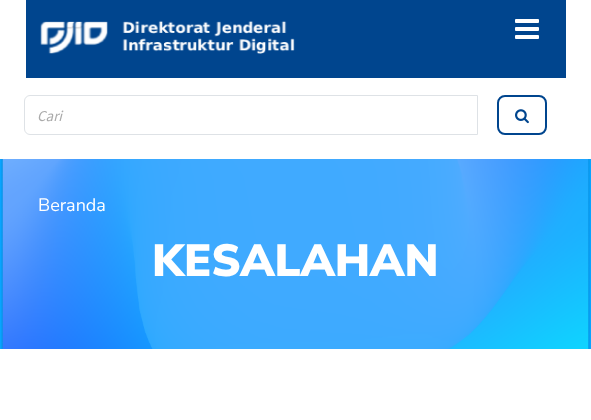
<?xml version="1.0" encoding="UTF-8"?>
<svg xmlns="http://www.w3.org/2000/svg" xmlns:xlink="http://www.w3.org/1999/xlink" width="591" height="420">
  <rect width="100%" height="100%" fill="#ffffff" />
  <rect x="26" width="540" height="78" fill="#00458e" />
  <image x="40" y="21" width="255" height="33" xlink:href="image1.png" />
  <image x="515" y="19" width="24" height="20" xlink:href="image2.png" />
  <path d="M 30 95.5 h 447.5 v 39 h -447.5 c -3 0 -5.5 -2.5 -5.5 -5.5 v -28 c 0 -3 2.5 -5.5 5.5 -5.5 z" fill="none" stroke="#dee2e6" />
  <rect x="498" y="96" width="48" height="38" rx="7" fill="none" stroke="#00458e" stroke-width="2" />
  <image x="515" y="109" width="14" height="15" xlink:href="image3.png" />
  <rect y="159" width="591" height="190" fill="#08a4ff" />
  <image x="1" y="159" width="589" height="190" xlink:href="image4.png" />
  <text x="37" y="121" style="font-family: Source Sans Pro; font-size: 15px; font-style: italic; fill: #aaaaaa">Cari</text>
  <text x="38" y="211" style="font-family: Nunito Sans; font-size: 18px; fill: #ffffff">Beranda</text>
  <text x="152" y="276" style="font-family: Nunito Sans; font-size: 45px; font-weight: 900; fill: #ffffff">KESALAHAN</text>
</svg>
